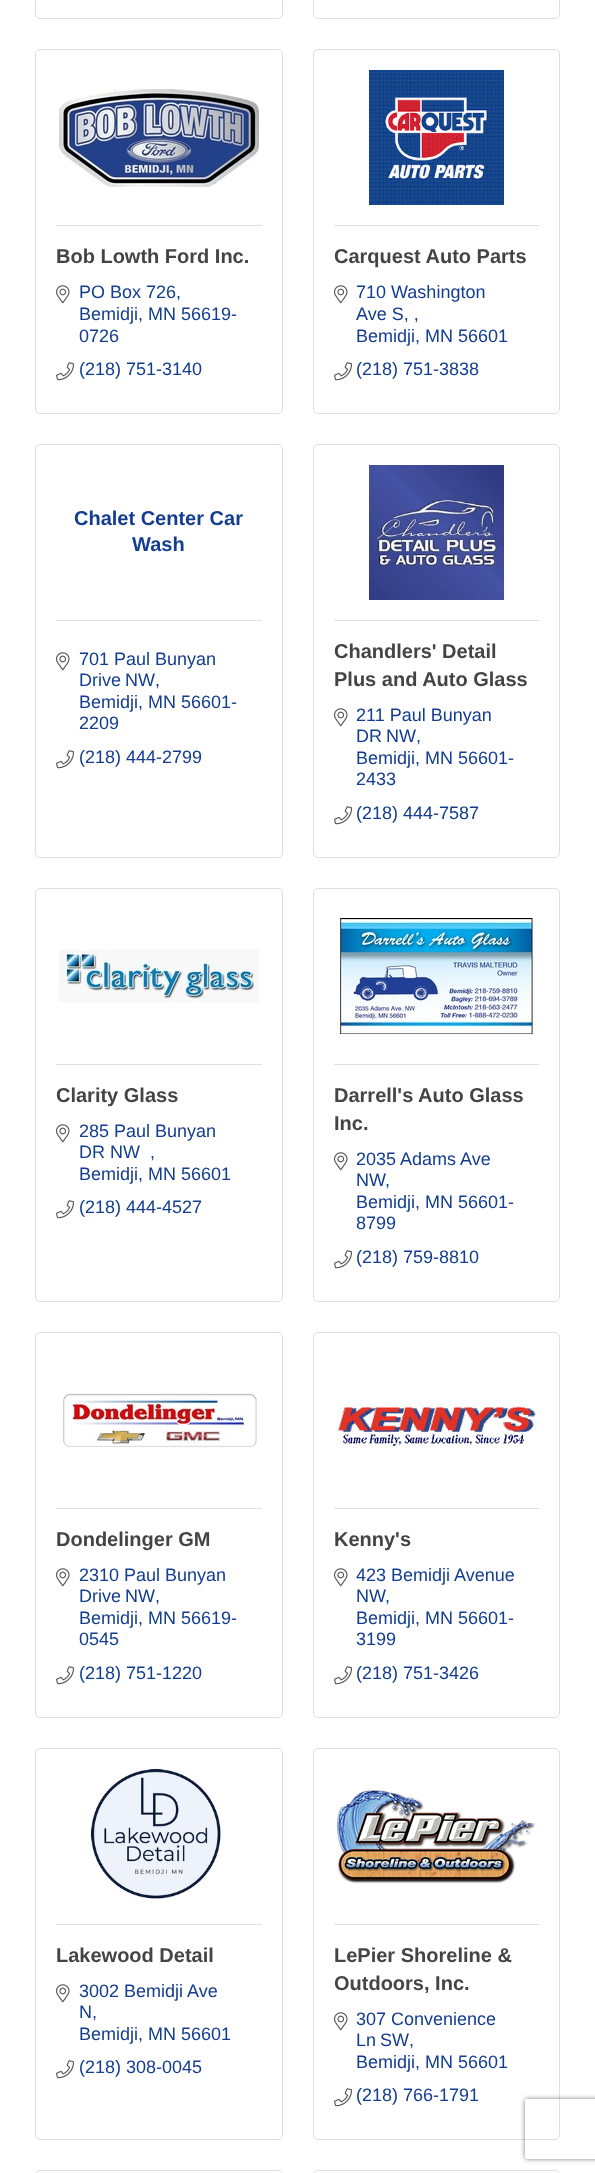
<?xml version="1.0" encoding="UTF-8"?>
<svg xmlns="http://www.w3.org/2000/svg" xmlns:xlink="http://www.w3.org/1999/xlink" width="595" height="2173">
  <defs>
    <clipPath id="clip1"><path d="M 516 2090 h 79 v 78 h -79 z m 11 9 h 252 c 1 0 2 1 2 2 v 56 c 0 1 -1 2 -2 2 h -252 c -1 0 -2 -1 -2 -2 v -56 c 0 -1 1 -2 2 -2 z" clip-rule="evenodd" /></clipPath>
  </defs>
  <rect width="100%" height="100%" fill="#ffffff" />
  <rect x="35.5" y="-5.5" width="247" height="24" rx="4.5" fill="none" stroke="#dfdfdf" />
  <rect x="313.5" y="-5.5" width="246" height="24" rx="4.5" fill="none" stroke="#dfdfdf" />
  <rect x="35.5" y="49.5" width="247" height="364" rx="4.5" fill="none" stroke="#dfdfdf" />
  <image x="59" y="89" width="200" height="98" xlink:href="image1.png" />
  <rect x="56" y="225" width="206" height="1" fill="#dfdfdf" />
  <image x="56" y="285" width="14" height="19" xlink:href="image2.png" />
  <image x="56" y="362" width="18" height="19" xlink:href="image3.png" />
  <rect x="313.5" y="49.5" width="246" height="364" rx="4.5" fill="none" stroke="#dfdfdf" />
  <image x="369" y="70" width="135" height="135" xlink:href="image4.png" />
  <rect x="334" y="225" width="205" height="1" fill="#dfdfdf" />
  <image x="334" y="285" width="14" height="19" xlink:href="image2.png" />
  <image x="334" y="362" width="18" height="19" xlink:href="image3.png" />
  <rect x="35.5" y="444.5" width="247" height="413" rx="4.5" fill="none" stroke="#dfdfdf" />
  <rect x="56" y="620" width="206" height="1" fill="#dfdfdf" />
  <image x="56" y="652" width="14" height="19" xlink:href="image2.png" />
  <image x="56" y="750" width="18" height="19" xlink:href="image3.png" />
  <rect x="313.5" y="444.5" width="246" height="413" rx="4.5" fill="none" stroke="#dfdfdf" />
  <image x="369" y="465" width="135" height="135" xlink:href="image5.png" />
  <rect x="334" y="620" width="205" height="1" fill="#dfdfdf" />
  <image x="334" y="708" width="14" height="19" xlink:href="image2.png" />
  <image x="334" y="806" width="18" height="19" xlink:href="image3.png" />
  <rect x="35.5" y="888.5" width="247" height="413" rx="4.5" fill="none" stroke="#dfdfdf" />
  <image x="59" y="950" width="200" height="52" xlink:href="image6.png" />
  <rect x="56" y="1064" width="206" height="1" fill="#dfdfdf" />
  <image x="56" y="1124" width="14" height="19" xlink:href="image2.png" />
  <image x="56" y="1200" width="18" height="19" xlink:href="image3.png" />
  <rect x="313.5" y="888.5" width="246" height="413" rx="4.5" fill="none" stroke="#dfdfdf" />
  <image x="336" y="918" width="200" height="116" xlink:href="image7.png" />
  <rect x="334" y="1064" width="205" height="1" fill="#dfdfdf" />
  <image x="334" y="1152" width="14" height="19" xlink:href="image2.png" />
  <image x="334" y="1250" width="18" height="19" xlink:href="image3.png" />
  <rect x="35.5" y="1332.5" width="247" height="385" rx="4.5" fill="none" stroke="#dfdfdf" />
  <image x="61" y="1392" width="196" height="56" xlink:href="image8.png" />
  <rect x="56" y="1508" width="206" height="1" fill="#dfdfdf" />
  <image x="56" y="1568" width="14" height="19" xlink:href="image2.png" />
  <image x="56" y="1666" width="18" height="19" xlink:href="image3.png" />
  <rect x="313.5" y="1332.5" width="246" height="385" rx="4.5" fill="none" stroke="#dfdfdf" />
  <image x="336" y="1406" width="200" height="40" xlink:href="image9.png" />
  <rect x="334" y="1508" width="205" height="1" fill="#dfdfdf" />
  <image x="334" y="1568" width="14" height="19" xlink:href="image2.png" />
  <image x="334" y="1666" width="18" height="19" xlink:href="image3.png" />
  <rect x="35.5" y="1748.5" width="247" height="391" rx="4.5" fill="none" stroke="#dfdfdf" />
  <image x="91" y="1769" width="130" height="130" xlink:href="image10.png" />
  <rect x="56" y="1924" width="206" height="1" fill="#dfdfdf" />
  <image x="56" y="1984" width="14" height="19" xlink:href="image2.png" />
  <image x="56" y="2060" width="18" height="19" xlink:href="image3.png" />
  <rect x="313.5" y="1748.5" width="246" height="391" rx="4.5" fill="none" stroke="#dfdfdf" />
  <image x="336" y="1790" width="199" height="94" xlink:href="image11.png" />
  <rect x="334" y="1924" width="205" height="1" fill="#dfdfdf" />
  <image x="334" y="2012" width="14" height="19" xlink:href="image2.png" />
  <image x="334" y="2088" width="18" height="19" xlink:href="image3.png" />
  <rect x="35.5" y="2170.5" width="247" height="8" rx="4.5" fill="none" stroke="#dfdfdf" />
  <rect x="313.5" y="2170.5" width="246" height="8" rx="4.5" fill="none" stroke="#dfdfdf" />
  <g clip-path="url(#clip1)">
    <rect x="525" y="2099" width="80" height="60" rx="2" fill="#808080" filter="blur(2.5px)" />
  </g>
  <text x="56" y="263" style="font-family: Liberation Sans; font-size: 20px; font-weight: bold; fill: #444444">Bob Lowth Ford Inc.</text>
  <text x="79" y="298" style="font-family: Liberation Sans; font-size: 18px; fill: #133d90">PO Box 726,</text>
  <text x="79" y="320" style="font-family: Liberation Sans; font-size: 18px; fill: #133d90">Bemidji, MN 56619-</text>
  <text x="79" y="342" style="font-family: Liberation Sans; font-size: 18px; fill: #133d90">0726</text>
  <text x="79" y="375" style="font-family: Liberation Sans; font-size: 18px; fill: #133d90">(218) 751-3140</text>
  <text x="334" y="263" style="font-family: Liberation Sans; font-size: 20px; font-weight: bold; fill: #444444">Carquest Auto Parts</text>
  <text x="356" y="298" style="font-family: Liberation Sans; font-size: 18px; fill: #133d90">710 Washington</text>
  <text x="356" y="320" style="font-family: Liberation Sans; font-size: 18px; fill: #133d90">Ave S, ,</text>
  <text x="356" y="342" style="font-family: Liberation Sans; font-size: 18px; fill: #133d90">Bemidji, MN 56601</text>
  <text x="356" y="375" style="font-family: Liberation Sans; font-size: 18px; fill: #133d90">(218) 751-3838</text>
  <text x="74" y="525" style="font-family: Liberation Sans; font-size: 20px; font-weight: bold; fill: #133d90">Chalet Center Car</text>
  <text x="132" y="551" style="font-family: Liberation Sans; font-size: 20px; font-weight: bold; fill: #133d90">Wash</text>
  <text x="79" y="665" style="font-family: Liberation Sans; font-size: 18px; fill: #133d90">701 Paul Bunyan</text>
  <text x="79" y="686" word-spacing="-1" style="font-family: Liberation Sans; font-size: 18px; fill: #133d90">Drive NW</text>
  <text x="155" y="686" style="font-family: Liberation Sans; font-size: 18px; fill: #133d90">,</text>
  <text x="79" y="708" style="font-family: Liberation Sans; font-size: 18px; fill: #133d90">Bemidji, MN 56601-</text>
  <text x="79" y="729" style="font-family: Liberation Sans; font-size: 18px; fill: #133d90">2209</text>
  <text x="79" y="763" style="font-family: Liberation Sans; font-size: 18px; fill: #133d90">(218) 444-2799</text>
  <text x="334" y="658" style="font-family: Liberation Sans; font-size: 20px; font-weight: bold; fill: #444444">Chandlers' Detail</text>
  <text x="334" y="686" style="font-family: Liberation Sans; font-size: 20px; font-weight: bold; fill: #444444">Plus and Auto Glass</text>
  <text x="356" y="721" style="font-family: Liberation Sans; font-size: 18px; fill: #133d90">211 Paul Bunyan</text>
  <text x="356" y="742" word-spacing="-1" style="font-family: Liberation Sans; font-size: 18px; fill: #133d90">DR NW</text>
  <text x="416" y="742" style="font-family: Liberation Sans; font-size: 18px; fill: #133d90">,</text>
  <text x="356" y="764" style="font-family: Liberation Sans; font-size: 18px; fill: #133d90">Bemidji, MN 56601-</text>
  <text x="356" y="785" style="font-family: Liberation Sans; font-size: 18px; fill: #133d90">2433</text>
  <text x="356" y="819" style="font-family: Liberation Sans; font-size: 18px; fill: #133d90">(218) 444-7587</text>
  <text x="56" y="1102" style="font-family: Liberation Sans; font-size: 20px; font-weight: bold; fill: #444444">Clarity Glass</text>
  <text x="79" y="1137" style="font-family: Liberation Sans; font-size: 18px; fill: #133d90">285 Paul Bunyan</text>
  <text x="79" y="1158" style="font-family: Liberation Sans; font-size: 18px; fill: #133d90">DR NW</text>
  <text x="150" y="1158" style="font-family: Liberation Sans; font-size: 18px; fill: #133d90">,</text>
  <text x="79" y="1180" style="font-family: Liberation Sans; font-size: 18px; fill: #133d90">Bemidji, MN 56601</text>
  <text x="79" y="1213" style="font-family: Liberation Sans; font-size: 18px; fill: #133d90">(218) 444-4527</text>
  <text x="334" y="1102" style="font-family: Liberation Sans; font-size: 20px; font-weight: bold; fill: #444444">Darrell's Auto Glass</text>
  <text x="334" y="1130" style="font-family: Liberation Sans; font-size: 20px; font-weight: bold; fill: #444444">Inc.</text>
  <text x="356" y="1165" style="font-family: Liberation Sans; font-size: 18px; fill: #133d90">2035 Adams Ave</text>
  <text x="356" y="1186" style="font-family: Liberation Sans; font-size: 18px; fill: #133d90">NW</text>
  <text x="385" y="1186" style="font-family: Liberation Sans; font-size: 18px; fill: #133d90">,</text>
  <text x="356" y="1208" style="font-family: Liberation Sans; font-size: 18px; fill: #133d90">Bemidji, MN 56601-</text>
  <text x="356" y="1229" style="font-family: Liberation Sans; font-size: 18px; fill: #133d90">8799</text>
  <text x="356" y="1263" style="font-family: Liberation Sans; font-size: 18px; fill: #133d90">(218) 759-8810</text>
  <text x="56" y="1546" style="font-family: Liberation Sans; font-size: 20px; font-weight: bold; fill: #444444">Dondelinger GM</text>
  <text x="79" y="1581" style="font-family: Liberation Sans; font-size: 18px; fill: #133d90">2310 Paul Bunyan</text>
  <text x="79" y="1602" word-spacing="-1" style="font-family: Liberation Sans; font-size: 18px; fill: #133d90">Drive NW</text>
  <text x="155" y="1602" style="font-family: Liberation Sans; font-size: 18px; fill: #133d90">,</text>
  <text x="79" y="1624" style="font-family: Liberation Sans; font-size: 18px; fill: #133d90">Bemidji, MN 56619-</text>
  <text x="79" y="1645" style="font-family: Liberation Sans; font-size: 18px; fill: #133d90">0545</text>
  <text x="79" y="1679" style="font-family: Liberation Sans; font-size: 18px; fill: #133d90">(218) 751-1220</text>
  <text x="334" y="1546" style="font-family: Liberation Sans; font-size: 20px; font-weight: bold; fill: #444444">Kenny's</text>
  <text x="356" y="1581" style="font-family: Liberation Sans; font-size: 18px; fill: #133d90">423 Bemidji Avenue</text>
  <text x="356" y="1602" style="font-family: Liberation Sans; font-size: 18px; fill: #133d90">NW</text>
  <text x="385" y="1602" style="font-family: Liberation Sans; font-size: 18px; fill: #133d90">,</text>
  <text x="356" y="1624" style="font-family: Liberation Sans; font-size: 18px; fill: #133d90">Bemidji, MN 56601-</text>
  <text x="356" y="1645" style="font-family: Liberation Sans; font-size: 18px; fill: #133d90">3199</text>
  <text x="356" y="1679" style="font-family: Liberation Sans; font-size: 18px; fill: #133d90">(218) 751-3426</text>
  <text x="56" y="1962" style="font-family: Liberation Sans; font-size: 20px; font-weight: bold; fill: #444444">Lakewood Detail</text>
  <text x="79" y="1997" style="font-family: Liberation Sans; font-size: 18px; fill: #133d90">3002 Bemidji Ave</text>
  <text x="79" y="2018" style="font-family: Liberation Sans; font-size: 18px; fill: #133d90">N,</text>
  <text x="79" y="2040" style="font-family: Liberation Sans; font-size: 18px; fill: #133d90">Bemidji, MN 56601</text>
  <text x="79" y="2073" style="font-family: Liberation Sans; font-size: 18px; fill: #133d90">(218) 308-0045</text>
  <text x="334" y="1962" style="font-family: Liberation Sans; font-size: 20px; font-weight: bold; fill: #444444">LePier Shoreline &amp;</text>
  <text x="334" y="1990" style="font-family: Liberation Sans; font-size: 20px; font-weight: bold; fill: #444444">Outdoors, Inc.</text>
  <text x="356" y="2025" style="font-family: Liberation Sans; font-size: 18px; fill: #133d90">307 Convenience</text>
  <text x="356" y="2046" word-spacing="-1" style="font-family: Liberation Sans; font-size: 18px; fill: #133d90">Ln SW</text>
  <text x="409" y="2046" style="font-family: Liberation Sans; font-size: 18px; fill: #133d90">,</text>
  <text x="356" y="2068" style="font-family: Liberation Sans; font-size: 18px; fill: #133d90">Bemidji, MN 56601</text>
  <text x="356" y="2101" style="font-family: Liberation Sans; font-size: 18px; fill: #133d90">(218) 766-1791</text>
</svg>
